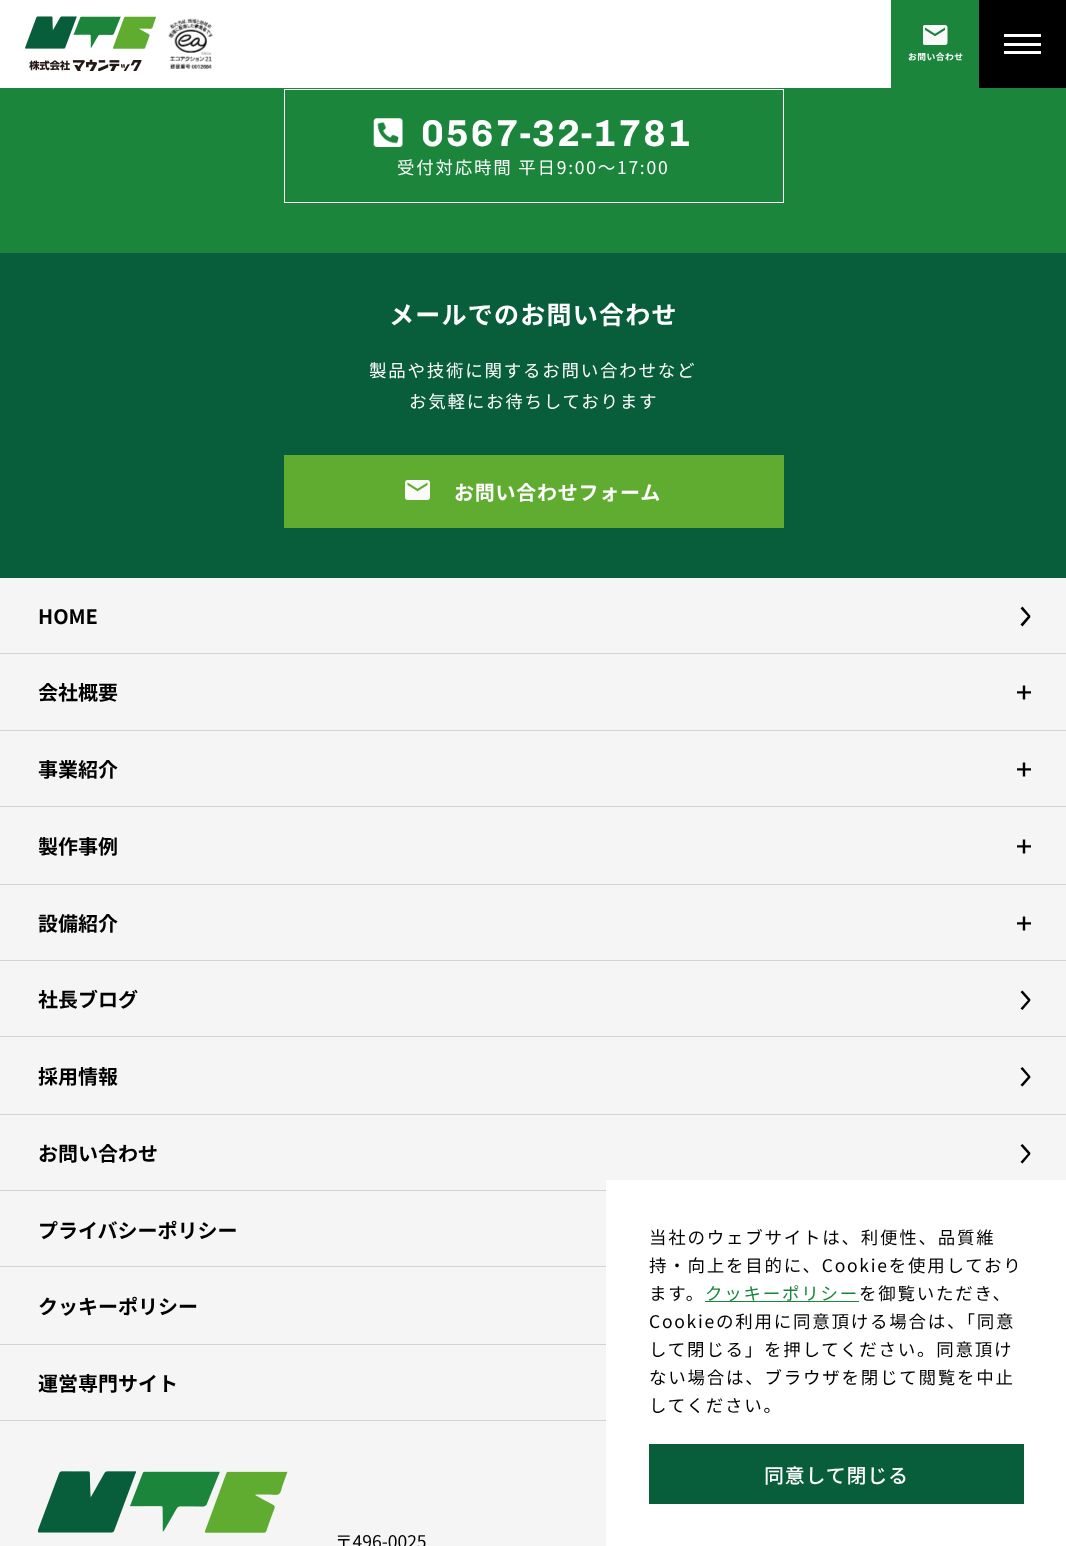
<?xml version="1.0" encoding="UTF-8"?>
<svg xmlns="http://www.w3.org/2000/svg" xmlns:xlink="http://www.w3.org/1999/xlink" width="1066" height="1546">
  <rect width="100%" height="100%" fill="#1a853b" />
  <rect width="891" height="88" fill="#ffffff" />
  <image x="25" y="16" width="131" height="55" xlink:href="image1.png" />
  <image x="168" y="18" width="45" height="51" xlink:href="image2.png" />
  <image x="923" y="25" width="25" height="20" xlink:href="image3.png" />
  <rect x="979" width="87" height="88" fill="#000000" />
  <rect x="1004" y="34" width="37" height="3" fill="#ffffff" />
  <rect x="1004" y="43" width="37" height="3" fill="#ffffff" />
  <rect x="1004" y="51" width="37" height="3" fill="#ffffff" />
  <rect x="284.5" y="89.5" width="499" height="113" fill="none" stroke="#ffffff" />
  <image x="373" y="118" width="30" height="29" xlink:href="image4.png" />
  <rect y="253" width="1066" height="325" fill="#085d3b" />
  <rect x="284" y="455" width="500" height="73" fill="#60ac31" />
  <image x="405" y="480" width="25" height="20" xlink:href="image5.png" />
  <rect y="578" width="1066" height="968" fill="#f5f5f5" />
  <path d="M 1022.5 606.5 l 8 9.5 l -1.5 1.5 l -8.5 -9 z" fill="#000000" />
  <path d="M 1020.5 624.5 l 8.5 -9.5 l 1.5 2 l -8 9.5 z" fill="#000000" />
  <rect y="653" width="1066" height="1" fill="#d3d3d3" />
  <rect y="730" width="1066" height="1" fill="#d3d3d3" />
  <rect y="806" width="1066" height="1" fill="#d3d3d3" />
  <rect y="884" width="1066" height="1" fill="#d3d3d3" />
  <rect y="960" width="1066" height="1" fill="#d3d3d3" />
  <path d="M 1022.5 990.5 l 8 9 l -1.5 2 l -8.5 -9.5 z" fill="#000000" />
  <path d="M 1020.5 1008.5 l 8.5 -9.5 l 1.5 1.5 l -8 9.5 z" fill="#000000" />
  <rect y="1036" width="1066" height="1" fill="#d3d3d3" />
  <path d="M 1022.5 1067 l 8 9.5 l -1.5 1.5 l -8.5 -9.5 z" fill="#000000" />
  <path d="M 1020.5 1085 l 8.5 -9.5 l 1.5 2 l -8 9 z" fill="#000000" />
  <rect y="1114" width="1066" height="1" fill="#d3d3d3" />
  <path d="M 1022.5 1144 l 8 9 l -1.5 2 l -8.5 -9.5 z" fill="#000000" />
  <path d="M 1020.5 1162 l 8.5 -9.5 l 1.5 1.5 l -8 9.5 z" fill="#000000" />
  <rect y="1190" width="606" height="1" fill="#d3d3d3" />
  <rect y="1266" width="606" height="1" fill="#d3d3d3" />
  <rect y="1420" width="606" height="1" fill="#d3d3d3" />
  <rect y="1344" width="606" height="1" fill="#d3d3d3" />
  <image x="38" y="1471" width="250" height="62" xlink:href="image6.png" />
  <rect x="606" y="1180" width="460" height="366" fill="#ffffff" />
  <rect x="705" y="1301" width="154" height="1" fill="#1a853b" />
  <rect x="649" y="1444" width="375" height="60" fill="#085d3b" />
  <text x="908" y="60" style="font-family: Noto Sans JP; font-size: 8.75px; font-weight: bold; letter-spacing: 0.5px; fill: #ffffff">お問い合わせ</text>
  <text x="421" y="146" style="font-family: Chivo; font-size: 37.5px; font-weight: bold; letter-spacing: 1.9px; fill: #ffffff">0567-32-1781</text>
  <text x="397" y="174" style="font-family: Noto Sans JP; font-size: 17.5px; letter-spacing: 1.75px; fill: #ffffff">受付対応時間 平日9:00～17:00</text>
  <text x="389" y="324" style="font-family: Noto Sans JP; font-size: 25px; font-weight: bold; letter-spacing: 1.25px; fill: #ffffff">メールでのお問い合わせ</text>
  <text x="369" y="377" style="font-family: Noto Sans JP; font-size: 17.5px; letter-spacing: 1.75px; fill: #ffffff">製品や技術に関するお問い合わせなど</text>
  <text x="409" y="408" style="font-family: Noto Sans JP; font-size: 17.5px; letter-spacing: 1.75px; fill: #ffffff">お気軽にお待ちしております</text>
  <text x="454" y="500" style="font-family: Noto Sans JP; font-size: 20px; font-weight: bold; letter-spacing: 0.75px; fill: #ffffff">お問い合わせフォーム</text>
  <text x="38" y="624" style="font-family: Noto Sans JP; font-size: 20px; font-weight: bold; fill: #000000">HOME</text>
  <text x="38" y="700" style="font-family: Noto Sans JP; font-size: 20px; font-weight: bold; fill: #000000">会社概要</text>
  <text x="1014" y="700" style="font-family: Noto Sans JP; font-size: 20px; font-weight: 900; fill: #000000">＋</text>
  <text x="38" y="777" style="font-family: Noto Sans JP; font-size: 20px; font-weight: bold; fill: #000000">事業紹介</text>
  <text x="1014" y="777" style="font-family: Noto Sans JP; font-size: 20px; font-weight: 900; fill: #000000">＋</text>
  <text x="38" y="854" style="font-family: Noto Sans JP; font-size: 20px; font-weight: bold; fill: #000000">製作事例</text>
  <text x="1014" y="854" style="font-family: Noto Sans JP; font-size: 20px; font-weight: 900; fill: #000000">＋</text>
  <text x="38" y="931" style="font-family: Noto Sans JP; font-size: 20px; font-weight: bold; fill: #000000">設備紹介</text>
  <text x="1014" y="931" style="font-family: Noto Sans JP; font-size: 20px; font-weight: 900; fill: #000000">＋</text>
  <text x="38" y="1007" style="font-family: Noto Sans JP; font-size: 20px; font-weight: bold; fill: #000000">社長ブログ</text>
  <text x="38" y="1084" style="font-family: Noto Sans JP; font-size: 20px; font-weight: bold; fill: #000000">採用情報</text>
  <text x="38" y="1161" style="font-family: Noto Sans JP; font-size: 20px; font-weight: bold; fill: #000000">お問い合わせ</text>
  <text x="38" y="1238" style="font-family: Noto Sans JP; font-size: 20px; font-weight: bold; fill: #000000">プライバシーポリシー</text>
  <text x="38" y="1314" style="font-family: Noto Sans JP; font-size: 20px; font-weight: bold; fill: #000000">クッキーポリシー</text>
  <text x="38" y="1391" style="font-family: Noto Sans JP; font-size: 20px; font-weight: bold; fill: #000000">運営専門サイト</text>
  <text x="335" y="1548" style="font-family: Noto Sans JP; font-size: 17.5px; fill: #000000">〒496-0025</text>
  <text x="649" y="1244" style="font-family: Noto Sans JP; font-size: 17.5px; letter-spacing: 1.75px; fill: #000000">当社のウェブサイトは、利便性、品質維</text>
  <text x="649" y="1272" style="font-family: Noto Sans JP; font-size: 17.5px; letter-spacing: 1.75px; fill: #000000">持・向上を目的に、Cookieを使用しており</text>
  <text x="649" y="1300" style="font-family: Noto Sans JP; font-size: 17.5px; letter-spacing: 1.75px; fill: #000000">ます。</text>
  <text x="705" y="1300" style="font-family: Noto Sans JP; font-size: 17.5px; letter-spacing: 1.75px; fill: #1a853b">クッキーポリシー</text>
  <text x="859" y="1300" style="font-family: Noto Sans JP; font-size: 17.5px; letter-spacing: 1.75px; fill: #000000">を御覧いただき、</text>
  <text x="649" y="1328" style="font-family: Noto Sans JP; font-size: 17.5px; letter-spacing: 1.75px; fill: #000000">Cookieの利用に同意頂ける場合は、「同意</text>
  <text x="649" y="1356" style="font-family: Noto Sans JP; font-size: 17.5px; letter-spacing: 1.75px; fill: #000000">して閉じる」を押してください。同意頂け</text>
  <text x="649" y="1384" style="font-family: Noto Sans JP; font-size: 17.5px; letter-spacing: 1.75px; fill: #000000">ない場合は、ブラウザを閉じて閲覧を中止</text>
  <text x="649" y="1412" style="font-family: Noto Sans JP; font-size: 17.5px; letter-spacing: 1.75px; fill: #000000">してください。</text>
  <text x="764" y="1483" style="font-family: Noto Sans JP; font-size: 20px; font-weight: 500; letter-spacing: 0.75px; fill: #ffffff">同意して閉じる</text>
</svg>
